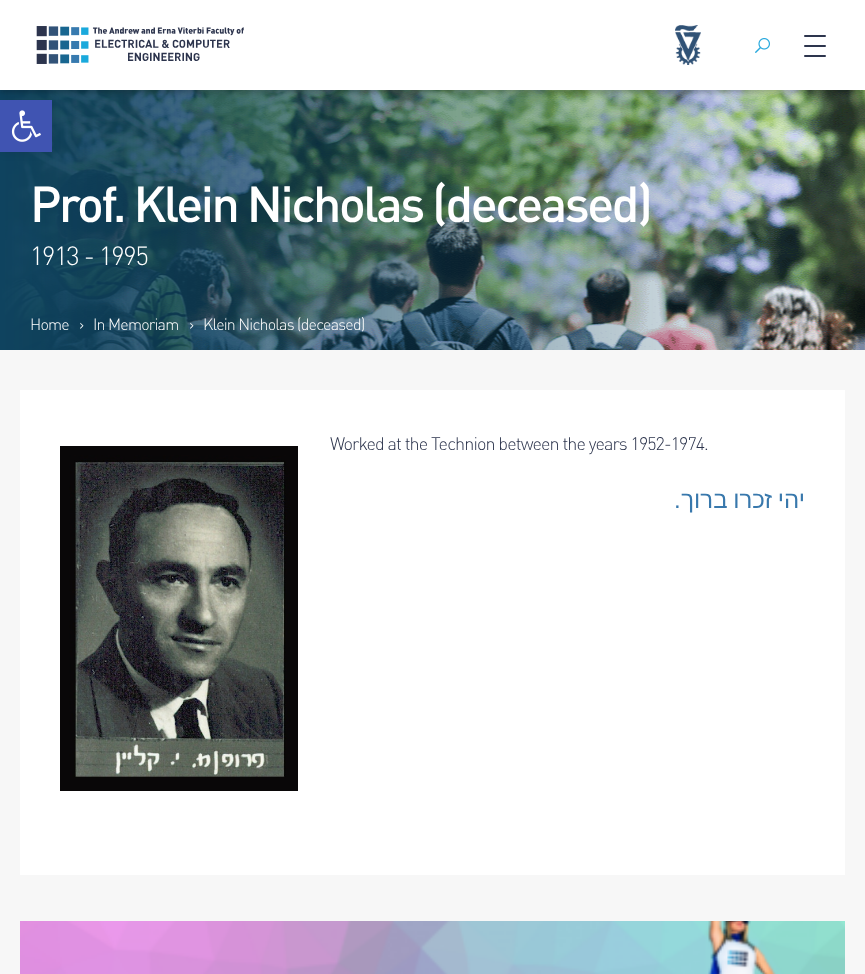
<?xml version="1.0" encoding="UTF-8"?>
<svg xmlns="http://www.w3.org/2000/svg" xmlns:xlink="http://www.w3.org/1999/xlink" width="865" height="974">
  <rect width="100%" height="100%" fill="#f7f7f7" />
  <image x="0" y="90" width="865" height="260" xlink:href="image5.png" />
  <rect y="3" width="865" height="90" fill="#000000" fill-opacity="0.2" filter="blur(2.5px)" />
  <rect width="865" height="90" fill="#ffffff" />
  <rect y="100" width="52" height="52" fill="#000000" fill-opacity="0.1" filter="blur(5px)" />
  <rect y="100" width="52" height="52" fill="#4054b2" />
  <image x="11" y="110" width="30" height="32" xlink:href="image1.png" />
  <image x="36" y="26" width="208" height="38" xlink:href="image2.png" />
  <image x="675" y="25" width="26" height="40" xlink:href="image3.png" />
  <image x="755" y="38" width="15" height="15" xlink:href="image4.png" />
  <rect x="804" y="35" width="22" height="2" rx="1" fill="#2d354d" />
  <rect x="804" y="45" width="22" height="2" rx="1" fill="#2d354d" />
  <rect x="804" y="55" width="22" height="2" rx="1" fill="#2d354d" />
  <rect x="20" y="390" width="825" height="485" fill="#ffffff" />
  <image x="60" y="446" width="238" height="345" xlink:href="image6.png" />
  <image x="20" y="921" width="825" height="53" xlink:href="image7.png" />
  <text x="30" y="222" style="font-family: DIN; font-size: 50px; font-weight: 500; letter-spacing: -2.5px; fill: #ffffff">Prof. Klein Nicholas (deceased)</text>
  <text x="30" y="265" style="font-family: DIN; font-size: 26px; font-weight: 300; letter-spacing: -1.25px; fill: #ffffff">1913 - 1995</text>
  <text x="30" y="330" style="font-family: DIN; font-size: 16px; font-weight: 300; letter-spacing: -0.8px; fill: #ffffff">Home</text>
  <text x="79" y="330" style="font-family: DIN; font-size: 16px; font-weight: 300; letter-spacing: -0.8px; fill: #ffffff">›</text>
  <text x="93" y="330" style="font-family: DIN; font-size: 16px; font-weight: 300; letter-spacing: -0.8px; fill: #ffffff">In Memoriam</text>
  <text x="189" y="330" style="font-family: DIN; font-size: 16px; font-weight: 300; letter-spacing: -0.8px; fill: #ffffff">›</text>
  <text x="203" y="330" style="font-family: DIN; font-size: 16px; font-weight: 300; letter-spacing: -0.8px; fill: #ffffff">Klein Nicholas (deceased)</text>
  <text x="330" y="450" style="font-family: DIN; font-size: 18px; font-weight: 300; letter-spacing: -0.9px; fill: #2d354d">Worked at the Technion between the years 1952-1974.</text>
  <text x="674" y="508" style="font-family: Liberation Sans; font-size: 24px; fill: #3878ac">.</text>
  <text x="805" y="508" word-spacing="-1" style="font-family: Liberation Sans; font-size: 24px; direction: rtl; fill: #3878ac">יהי זכרו ברוך</text>
</svg>
